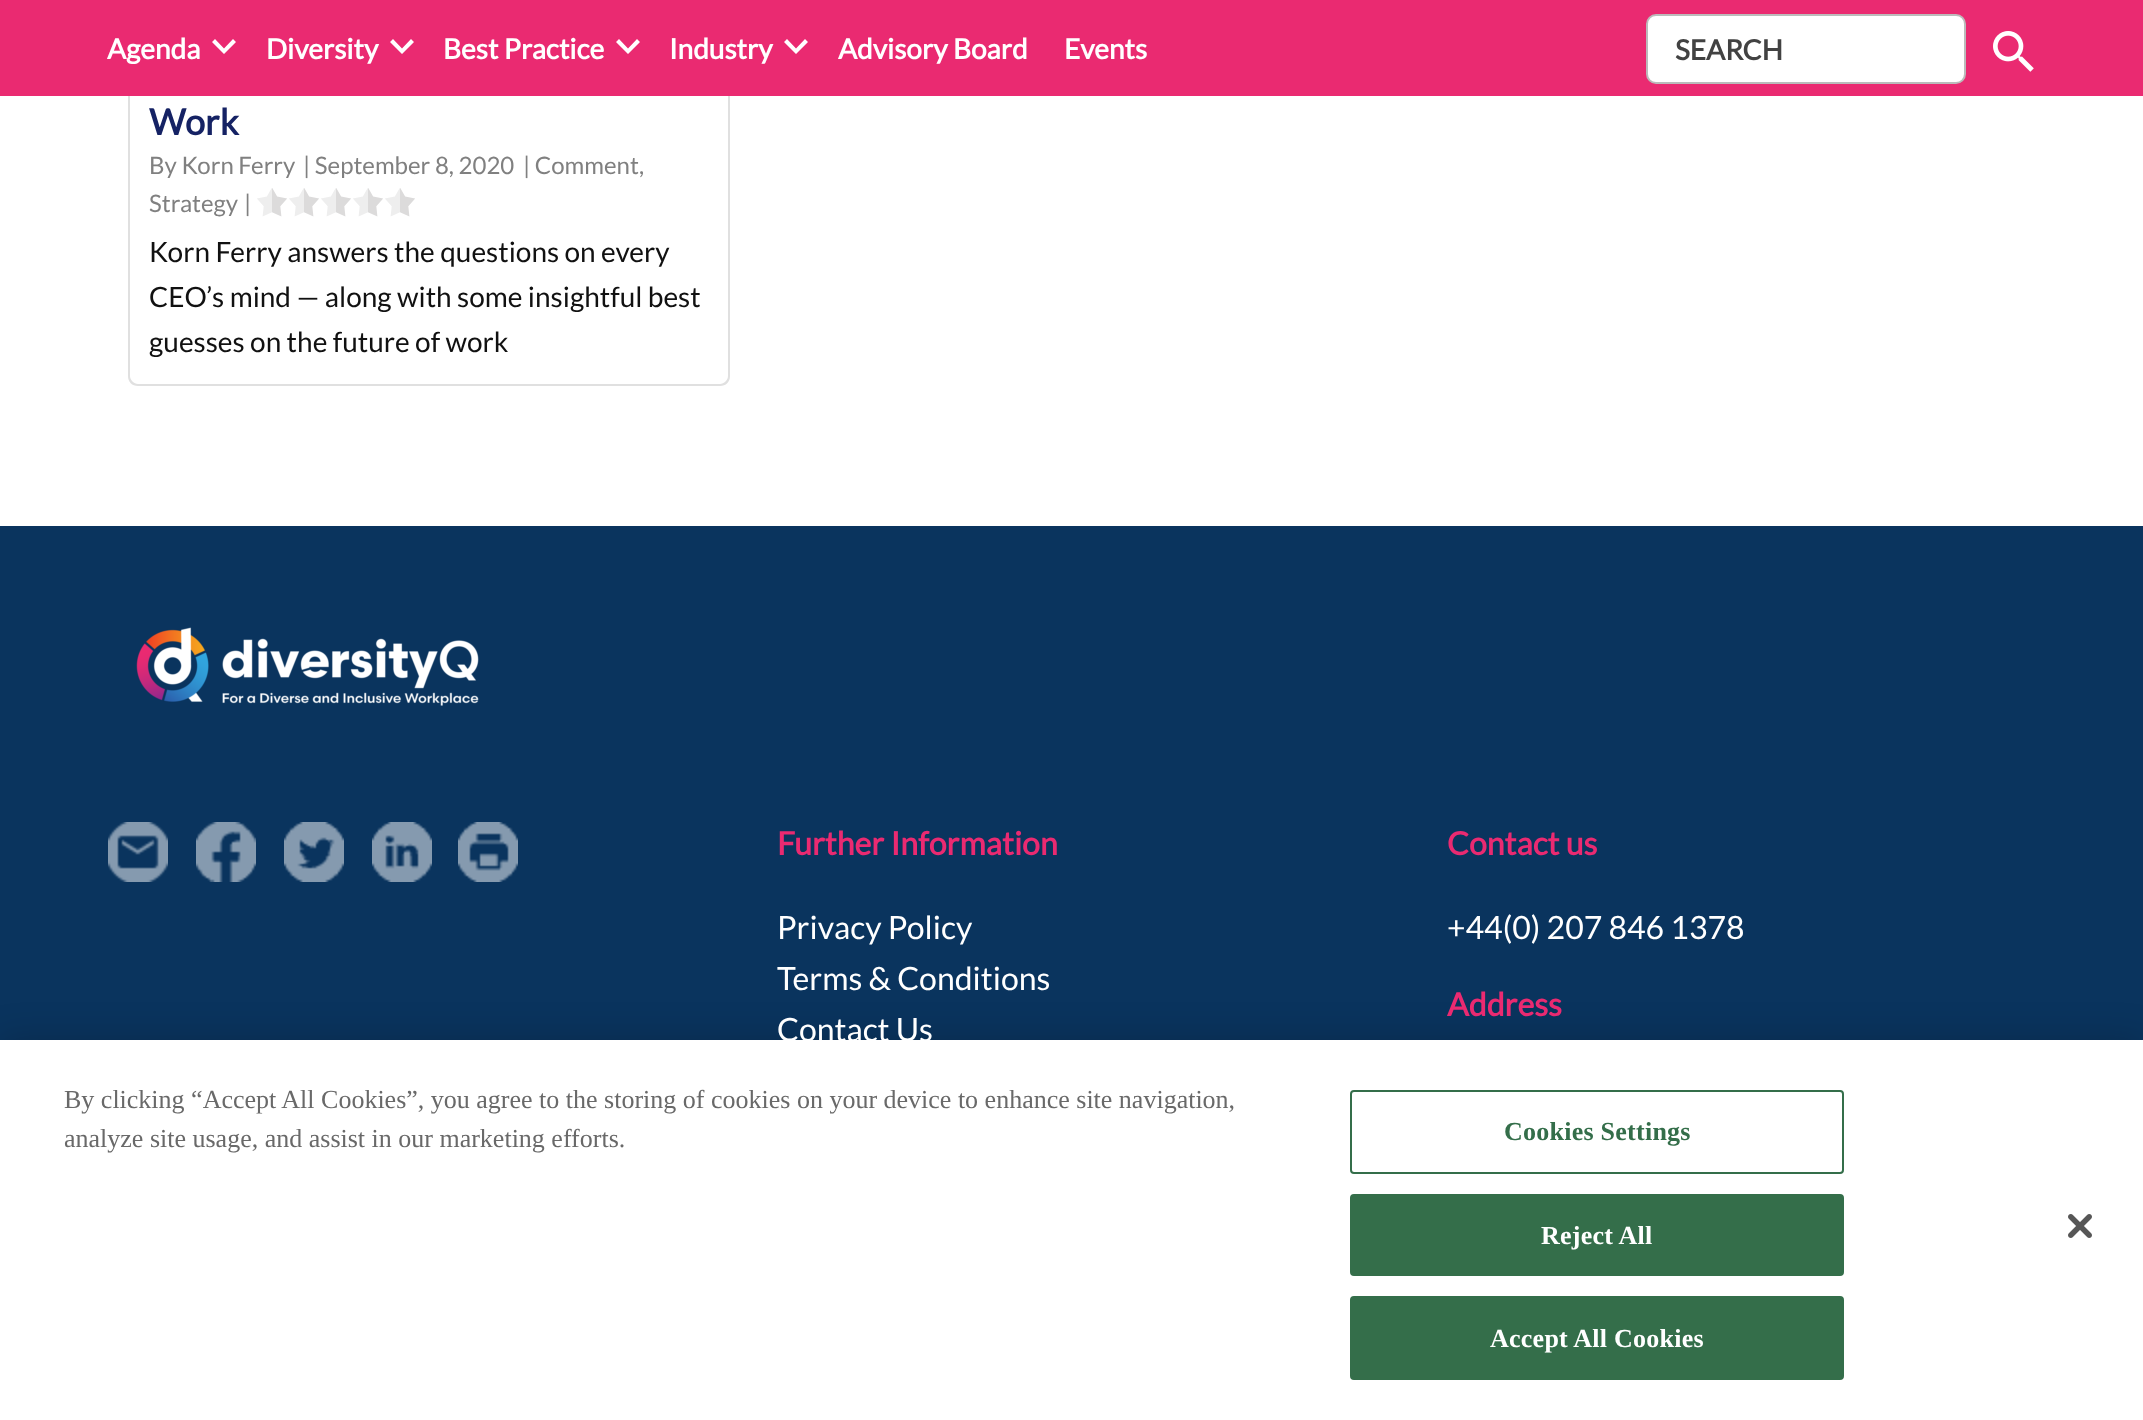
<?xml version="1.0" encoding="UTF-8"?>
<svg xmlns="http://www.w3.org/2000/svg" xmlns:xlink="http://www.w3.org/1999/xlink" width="2143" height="1420">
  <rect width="100%" height="100%" fill="#ffffff" />
  <rect width="108" height="96" fill="#ea2a71" />
  <path d="M 128 38 h 602 v 338 c 0 6 -4 10 -10 10 h -582 c -6 0 -10 -4 -10 -10 z m 2 0 h 598 v 338 c 0 4 -4 8 -8 8 h -582 c -4 0 -8 -4 -8 -8 z" fill="#e0e0e0" fill-rule="evenodd" />
  <rect x="108" width="2035" height="96" fill="#ea2a71" />
  <path d="M 215 39 l 9 9.5 l 9 -9.5 l 3 3 l -12 12 l -12 -12 z" fill="#ffffff" />
  <path d="M 393 39 l 9 9.5 l 9 -9.5 l 3 3 l -12 12 l -12 -12 z" fill="#ffffff" />
  <path d="M 619 39 l 9 9.5 l 9 -9.5 l 3 3 l -12 12 l -12 -12 z" fill="#ffffff" />
  <path d="M 787 39 l 9 9.5 l 9 -9.5 l 3 3 l -12 12 l -12 -12 z" fill="#ffffff" />
  <rect x="1647" y="15" width="318" height="68" rx="9" fill="#ffffff" stroke="#bbbbbb" stroke-width="2" />
  <image x="1993" y="31" width="41" height="41" xlink:href="image1.png" />
  <image x="257" y="188" width="158" height="29" xlink:href="image2.png" />
  <rect y="526" width="2143" height="514" fill="#0a345e" />
  <image x="136" y="627" width="343" height="79" xlink:href="image3.png" />
  <image x="108" y="822" width="60" height="60" xlink:href="image4.png" />
  <image x="196" y="822" width="60" height="60" xlink:href="image5.png" />
  <image x="284" y="822" width="60" height="60" xlink:href="image6.png" />
  <image x="372" y="822" width="60" height="60" xlink:href="image7.png" />
  <image x="458" y="822" width="60" height="60" xlink:href="image8.png" />
  <rect y="1040" width="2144" height="380" fill="#000000" fill-opacity="0.2" filter="blur(18px)" />
  <rect y="1040" width="2143" height="380" fill="#ffffff" />
  <rect x="1351" y="1091" width="492" height="82" rx="3" fill="none" stroke="#346e4a" stroke-width="2" />
  <rect x="1351" y="1195" width="492" height="80" rx="3" fill="#346e4a" stroke="#346e4a" stroke-width="2" />
  <rect x="1351" y="1297" width="492" height="82" rx="3" fill="#346e4a" stroke="#346e4a" stroke-width="2" />
  <image x="2068" y="1214" width="24" height="24" xlink:href="image9.png" />
  <text x="107" y="59" style="font-family: Lato; font-size: 28px; font-weight: bold; fill: #ffffff">Agenda</text>
  <text x="266" y="59" style="font-family: Lato; font-size: 28px; font-weight: bold; fill: #ffffff">Diversity</text>
  <text x="443" y="59" style="font-family: Lato; font-size: 28px; font-weight: bold; fill: #ffffff">Best Practice</text>
  <text x="669" y="59" style="font-family: Lato; font-size: 28px; font-weight: bold; fill: #ffffff">Industry</text>
  <text x="838" y="59" style="font-family: Lato; font-size: 28px; font-weight: bold; fill: #ffffff">Advisory Board</text>
  <text x="1064" y="59" style="font-family: Lato; font-size: 28px; font-weight: bold; fill: #ffffff">Events</text>
  <text x="1675" y="60" style="font-family: Lato; font-size: 28px; font-weight: bold; fill: #424242">SEARCH</text>
  <text x="149" y="135" style="font-family: Lato; font-size: 36px; font-weight: bold; fill: #152264">Work</text>
  <text x="149" y="174" style="font-family: Lato; font-size: 24px; fill: #808080">By Korn Ferry</text>
  <text x="303" y="174" style="font-family: Lato; font-size: 24px; fill: #808080">| September 8, 2020</text>
  <text x="523" y="174" style="font-family: Lato; font-size: 24px; fill: #808080">| Comment,</text>
  <text x="149" y="212" style="font-family: Lato; font-size: 24px; fill: #808080">Strategy</text>
  <text x="244" y="212" style="font-family: Lato; font-size: 24px; fill: #808080">|</text>
  <text x="149" y="262" style="font-family: Lato; font-size: 28px; fill: #111111">Korn Ferry answers the questions on every</text>
  <text x="149" y="307" style="font-family: Lato; font-size: 28px; fill: #111111">CEO’s mind — along with some insightful best</text>
  <text x="149" y="352" style="font-family: Lato; font-size: 28px; fill: #111111">guesses on the future of work</text>
  <text x="777" y="855" style="font-family: Lato; font-size: 32px; font-weight: bold; fill: #ea2a71">Further Information</text>
  <text x="777" y="939" style="font-family: Lato; font-size: 32px; fill: #ffffff">Privacy Policy</text>
  <text x="777" y="990" style="font-family: Lato; font-size: 32px; fill: #ffffff">Terms &amp; Conditions</text>
  <text x="777" y="1041" style="font-family: Lato; font-size: 32px; fill: #ffffff">Contact Us</text>
  <text x="1447" y="855" style="font-family: Lato; font-size: 32px; font-weight: bold; fill: #ea2a71">Contact us</text>
  <text x="1447" y="939" style="font-family: Lato; font-size: 32px; fill: #ffffff">+44(0) 207 846 1378</text>
  <text x="1447" y="1016" style="font-family: Lato; font-size: 32px; font-weight: bold; fill: #ea2a71">Address</text>
  <text x="64" y="1108" style="font-family: Liberation Serif; font-size: 26px; fill: #696969">By clicking “Accept All Cookies”, you agree to the storing of cookies on your device to enhance site navigation,</text>
  <text x="64" y="1147" style="font-family: Liberation Serif; font-size: 26px; fill: #696969">analyze site usage, and assist in our marketing efforts.</text>
  <text x="1504" y="1140" style="font-family: Liberation Serif; font-size: 26px; font-weight: bold; letter-spacing: 0.25px; fill: #346e4a">Cookies Settings</text>
  <text x="1541" y="1244" style="font-family: Liberation Serif; font-size: 26px; font-weight: bold; letter-spacing: 0.25px; fill: #ffffff">Reject All</text>
  <text x="1490" y="1347" style="font-family: Liberation Serif; font-size: 26px; font-weight: bold; letter-spacing: 0.25px; fill: #ffffff">Accept All Cookies</text>
</svg>
